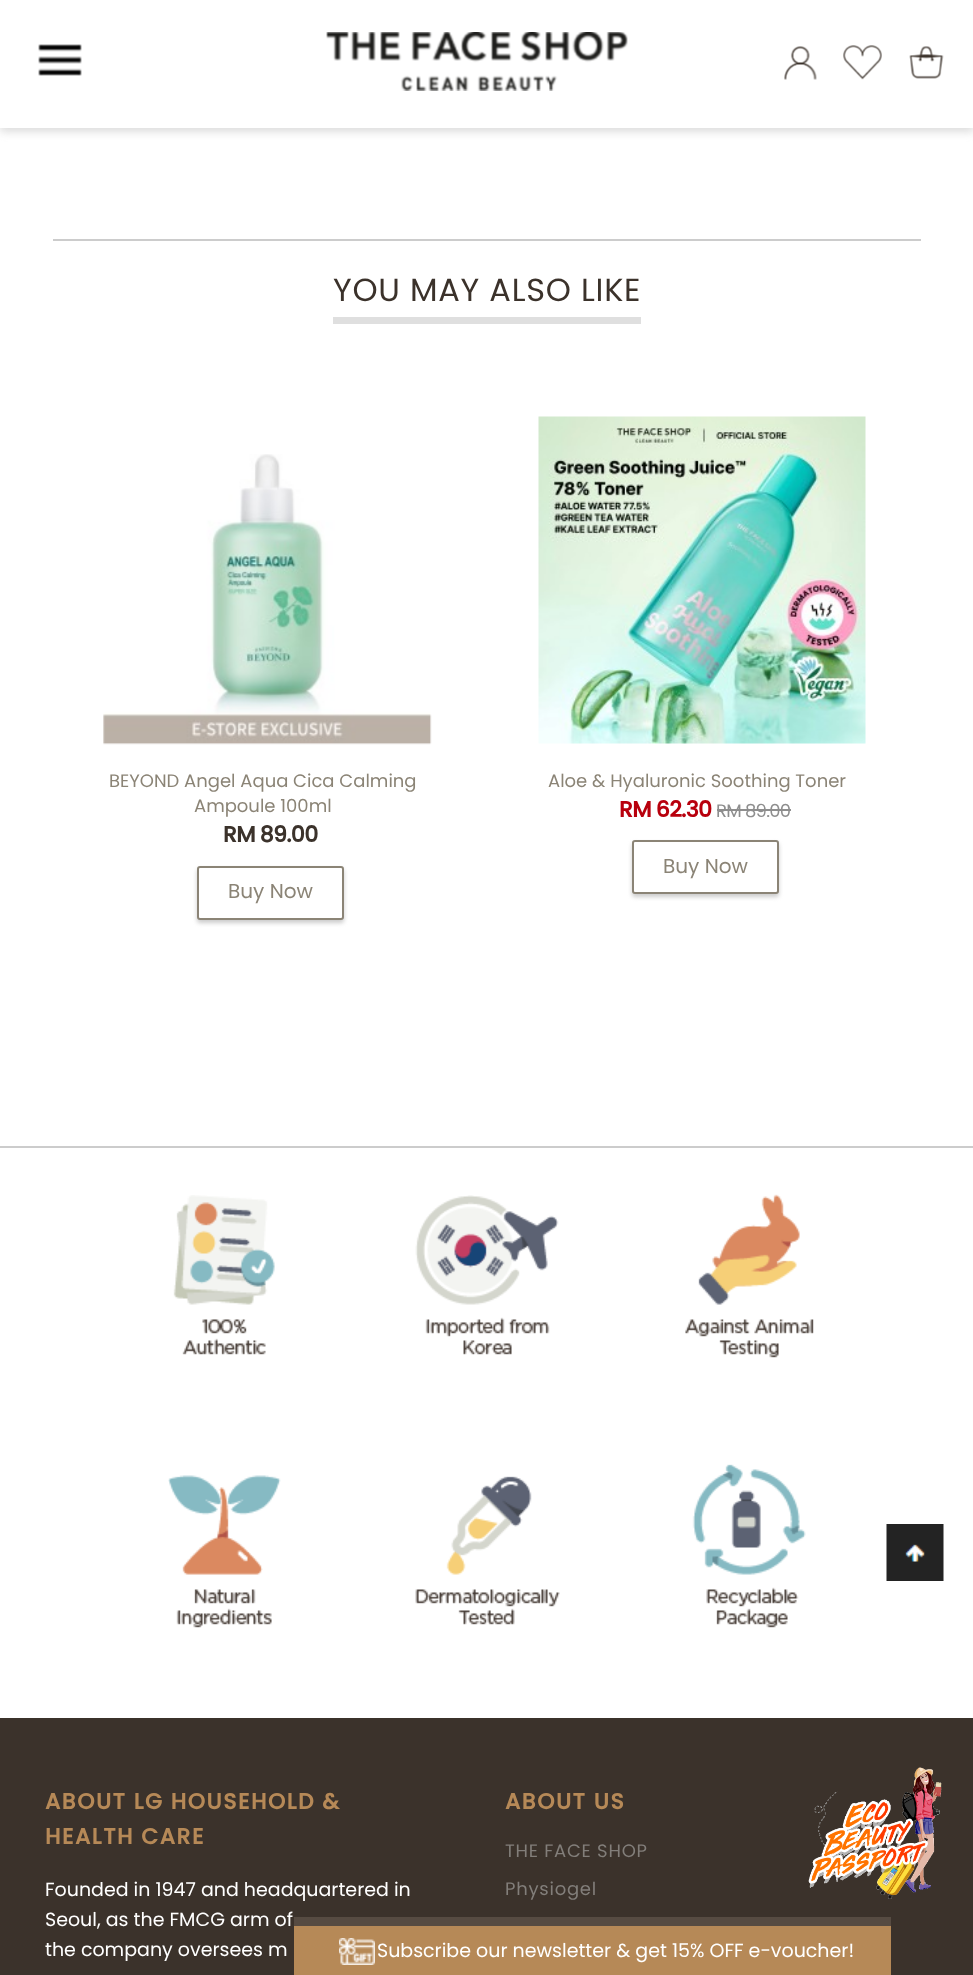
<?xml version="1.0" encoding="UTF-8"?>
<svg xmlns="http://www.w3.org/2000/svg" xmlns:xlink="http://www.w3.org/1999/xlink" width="973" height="1975">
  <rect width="100%" height="100%" fill="#ffffff" />
  <rect y="5" width="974" height="127" fill="#dddddd" filter="blur(4.5px)" />
  <rect width="973" height="128" fill="#ffffff" />
  <image x="38" y="44" width="44" height="32" xlink:href="image1.png" />
  <image x="326" y="32" width="302" height="59" xlink:href="image2.png" />
  <image x="784" y="46" width="33" height="34" xlink:href="image3.png" />
  <image x="843" y="45" width="39" height="35" xlink:href="image4.png" />
  <image x="909" y="46" width="35" height="33" xlink:href="image5.png" />
  <rect x="53" y="239" width="868" height="2" fill="#cccccc" />
  <rect x="333" y="317" width="308" height="7" fill="#dfdfdf" />
  <image x="103" y="454" width="329" height="291" xlink:href="image6.png" />
  <rect x="197" y="869" width="147" height="54" rx="3" fill="#cccccc" filter="blur(2px)" />
  <rect x="198" y="867" width="145" height="52" rx="2" fill="#ffffff" stroke="#8b8476" stroke-width="2" />
  <image x="538" y="416" width="328" height="328" xlink:href="image7.png" />
  <rect x="717" y="809" width="74" height="2" fill="#8e8e8e" />
  <rect x="632" y="843" width="147" height="54" rx="3" fill="#cccccc" filter="blur(2px)" />
  <rect x="633" y="841" width="145" height="52" rx="2" fill="#ffffff" stroke="#8b8476" stroke-width="2" />
  <rect y="1146" width="973" height="2" fill="#cccccc" />
  <image x="173" y="1195" width="102" height="160" xlink:href="image8.png" />
  <image x="415" y="1195" width="144" height="160" xlink:href="image9.png" />
  <image x="685" y="1194" width="129" height="164" xlink:href="image10.png" />
  <image x="168" y="1475" width="113" height="153" xlink:href="image11.png" />
  <image x="415" y="1476" width="145" height="149" xlink:href="image12.png" />
  <image x="692" y="1464" width="114" height="164" xlink:href="image13.png" />
  <image x="886" y="1524" width="58" height="57" xlink:href="image14.png" />
  <rect y="1718" width="973" height="257" fill="#3b322b" />
  <image x="808" y="1767" width="134" height="132" xlink:href="image15.png" />
  <rect x="294" y="1926" width="597" height="49" fill="#b68957" />
  <image x="339" y="1938" width="36" height="27" xlink:href="image16.png" />
  <rect x="294" y="1917" width="597" height="9" fill="#564b42" />
  <text x="333" y="301" style="font-family: Poppins; font-size: 32px; letter-spacing: 0.75px; fill: #3b322b">YOU MAY ALSO LIKE</text>
  <text x="109" y="787" style="font-family: Poppins; font-size: 18px; fill: #8b8476">BEYOND Angel Aqua Cica Calming</text>
  <text x="194" y="812" style="font-family: Poppins; font-size: 18px; fill: #8b8476">Ampoule 100ml</text>
  <text x="223" y="842" style="font-family: Poppins; font-size: 22px; font-weight: bold; letter-spacing: -0.75px; fill: #3b322b">RM 89.00</text>
  <text x="228" y="898" style="font-family: Poppins; font-size: 20px; fill: #8b8476">Buy Now</text>
  <text x="548" y="787" style="font-family: Poppins; font-size: 18px; fill: #8b8476">Aloe &amp; Hyaluronic Soothing Toner</text>
  <text x="619" y="817" style="font-family: Poppins; font-size: 22px; font-weight: bold; letter-spacing: -0.75px; fill: #b8000d">RM 62.30</text>
  <text x="716" y="817" style="font-family: Poppins; font-size: 18px; letter-spacing: -0.75px; fill: #8e8e8e">RM 89.00</text>
  <text x="663" y="873" style="font-family: Poppins; font-size: 20px; fill: #8b8476">Buy Now</text>
  <text x="45" y="1809" style="font-family: Poppins; font-size: 22px; font-weight: bold; letter-spacing: 1.5px; fill: #b68957">ABOUT LG HOUSEHOLD &amp;</text>
  <text x="45" y="1844" style="font-family: Poppins; font-size: 22px; font-weight: bold; letter-spacing: 1.5px; fill: #b68957">HEALTH CARE</text>
  <text x="45" y="1896" style="font-family: Poppins; font-size: 19px; fill: #ffffff">Founded in 1947 and headquartered in</text>
  <text x="45" y="1926" style="font-family: Poppins; font-size: 19px; fill: #ffffff">Seoul, as the FMCG arm of</text>
  <text x="45" y="1956" style="font-family: Poppins; font-size: 19px; fill: #ffffff">the company oversees m</text>
  <text x="505" y="1809" style="font-family: Poppins; font-size: 22px; font-weight: bold; letter-spacing: 1.5px; fill: #b68957">ABOUT US</text>
  <text x="505" y="1857" style="font-family: Poppins; font-size: 18px; letter-spacing: 0.75px; fill: #827e7a">THE FACE SHOP</text>
  <text x="505" y="1895" style="font-family: Poppins; font-size: 18px; letter-spacing: 0.75px; fill: #827e7a">Physiogel</text>
  <text x="377" y="1957" style="font-family: Poppins; font-size: 19px; fill: #ffffff">Subscribe our newsletter &amp; get 15% OFF e-voucher!</text>
</svg>
